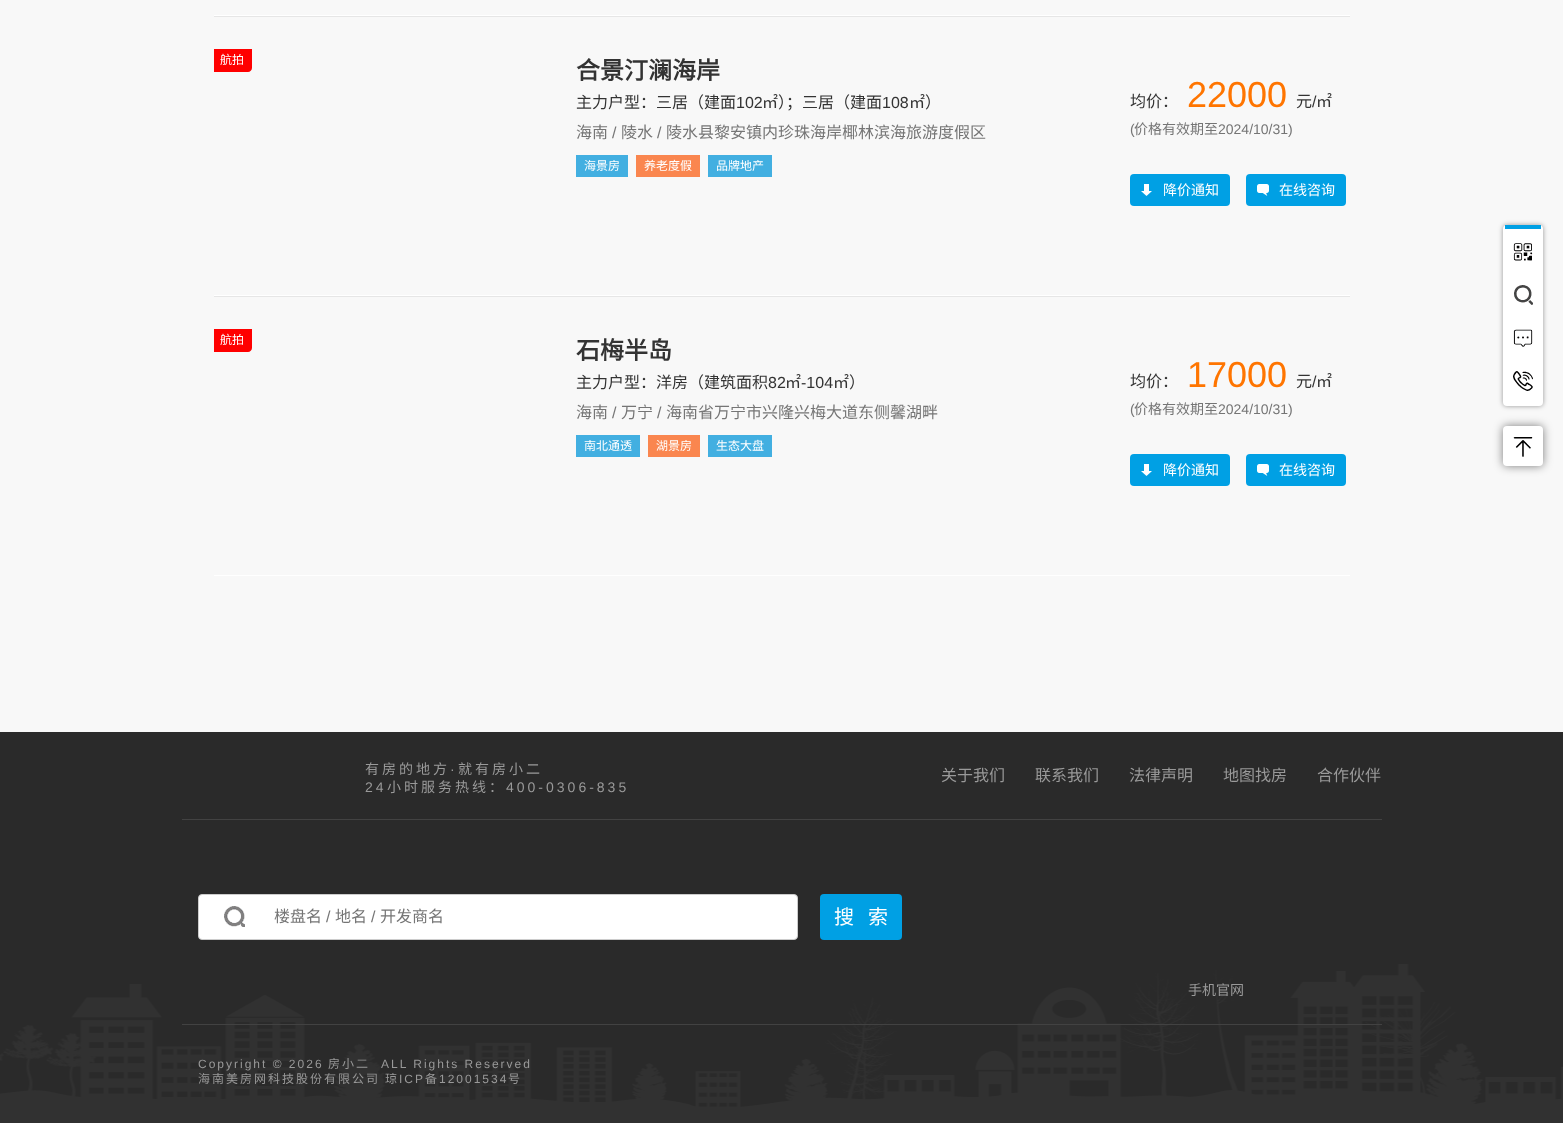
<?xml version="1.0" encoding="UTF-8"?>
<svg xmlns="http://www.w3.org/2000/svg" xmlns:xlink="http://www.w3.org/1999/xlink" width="1563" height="1123">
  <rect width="100%" height="100%" fill="#f8f8f8" />
  <rect x="214" y="15" width="1136" height="1" fill="#ffffff" />
  <rect x="214" y="16" width="1136" height="1" fill="#e6e6e6" />
  <rect x="214" y="295" width="1136" height="1" fill="#ffffff" />
  <path d="M 214 49 h 38 v 19 c 0 2 -2 4 -4 4 h -34 z" fill="#ff0000" />
  <rect x="576" y="155" width="52" height="22" fill="#42afe1" />
  <rect x="636" y="155" width="64" height="22" fill="#fa864f" />
  <rect x="708" y="155" width="64" height="22" fill="#42afe1" />
  <rect x="1130" y="174" width="100" height="32" rx="4" fill="#00a0e4" />
  <image x="1141" y="184" width="11" height="12" xlink:href="image1.png" />
  <rect x="1246" y="174" width="100" height="32" rx="4" fill="#00a0e4" />
  <image x="1257" y="184" width="12" height="12" xlink:href="image2.png" />
  <rect x="214" y="296" width="1136" height="1" fill="#e6e6e6" />
  <rect x="214" y="575" width="1136" height="1" fill="#ffffff" />
  <path d="M 214 329 h 38 v 19 c 0 2 -2 4 -4 4 h -34 z" fill="#ff0000" />
  <rect x="576" y="435" width="64" height="22" fill="#42afe1" />
  <rect x="648" y="435" width="52" height="22" fill="#fa864f" />
  <rect x="708" y="435" width="64" height="22" fill="#42afe1" />
  <rect x="1130" y="454" width="100" height="32" rx="4" fill="#00a0e4" />
  <image x="1141" y="464" width="11" height="12" xlink:href="image1.png" />
  <rect x="1246" y="454" width="100" height="32" rx="4" fill="#00a0e4" />
  <image x="1257" y="464" width="12" height="12" xlink:href="image2.png" />
  <rect y="732" width="1563" height="232" fill="#2a2a2a" />
  <image x="0" y="964" width="1563" height="159" xlink:href="image3.png" />
  <rect x="1503" y="225" width="40" height="181" rx="4" fill="#000000" fill-opacity="0.4" filter="blur(2.5px)" />
  <rect x="1503" y="225" width="40" height="181" rx="4" fill="#ffffff" />
  <rect x="1505" y="225" width="36" height="4" fill="#00a0e4" />
  <image x="1513" y="243" width="20" height="18" xlink:href="image4.png" />
  <image x="1514" y="285" width="19" height="20" xlink:href="image5.png" />
  <image x="1513" y="329" width="20" height="18" xlink:href="image6.png" />
  <image x="1513" y="371" width="20" height="20" xlink:href="image7.png" />
  <rect x="1503" y="426" width="40" height="40" rx="4" fill="#000000" fill-opacity="0.5" filter="blur(5px)" />
  <rect x="1503" y="426" width="40" height="40" rx="4" fill="#ffffff" />
  <image x="1513" y="437" width="20" height="20" xlink:href="image8.png" />
  <rect x="182" y="819" width="1200" height="1" fill="#424242" />
  <rect x="182" y="1024" width="1200" height="1" fill="#424242" />
  <rect x="198.5" y="894.5" width="599" height="45" rx="3.5" fill="#ffffff" stroke="#cccccc" />
  <image x="224" y="906" width="21" height="21" xlink:href="image9.png" />
  <rect x="820" y="894" width="82" height="46" rx="4" fill="#00a0e4" />
  <text x="220" y="64" style="font-family: Noto Sans CJK SC; font-size: 12px; fill: #ffffff">航拍</text>
  <text x="576" y="79" style="font-family: Noto Sans CJK SC; font-size: 24px; font-weight: bold; fill: #333333">合景汀澜海岸</text>
  <text x="576" y="108" style="font-family: Noto Sans CJK SC; font-size: 16px; fill: #333333">主力户型：三居（建面</text>
  <text x="736" y="108" style="font-family: Liberation Sans; font-size: 16px; fill: #333333">102</text>
  <text x="762" y="108" style="font-family: Noto Sans CJK SC; font-size: 16px; fill: #333333">㎡）；三居（建面</text>
  <text x="882" y="108" style="font-family: Liberation Sans; font-size: 16px; fill: #333333">108</text>
  <text x="909" y="108" style="font-family: Noto Sans CJK SC; font-size: 16px; fill: #333333">㎡）</text>
  <text x="576" y="138" style="font-family: Noto Sans CJK SC; font-size: 16px; fill: #757575">海南</text>
  <text x="612" y="138" style="font-family: Liberation Sans; font-size: 16px; fill: #757575">/</text>
  <text x="621" y="138" style="font-family: Noto Sans CJK SC; font-size: 16px; fill: #757575">陵水</text>
  <text x="657" y="138" style="font-family: Liberation Sans; font-size: 16px; fill: #757575">/</text>
  <text x="666" y="138" style="font-family: Noto Sans CJK SC; font-size: 16px; fill: #757575">陵水县黎安镇内珍珠海岸椰林滨海旅游度假区</text>
  <text x="584" y="170" style="font-family: Noto Sans CJK SC; font-size: 12px; fill: #ffffff">海景房</text>
  <text x="644" y="170" style="font-family: Noto Sans CJK SC; font-size: 12px; fill: #ffffff">养老度假</text>
  <text x="716" y="170" style="font-family: Noto Sans CJK SC; font-size: 12px; fill: #ffffff">品牌地产</text>
  <text x="1130" y="107" style="font-family: Noto Sans CJK SC; font-size: 16px; fill: #333333">均价：</text>
  <text x="1187" y="107" style="font-family: Liberation Sans; font-size: 36px; fill: #ff7500">22000</text>
  <text x="1296" y="107" style="font-family: Noto Sans CJK SC; font-size: 16px; fill: #333333">元</text>
  <text x="1312" y="107" style="font-family: Liberation Sans; font-size: 16px; fill: #333333">/</text>
  <text x="1316" y="107" style="font-family: Noto Sans CJK SC; font-size: 16px; fill: #333333">㎡</text>
  <text x="1130" y="134" style="font-family: Liberation Sans; font-size: 14px; fill: #757575">(</text>
  <text x="1134" y="134" style="font-family: Noto Sans CJK SC; font-size: 14px; fill: #757575">价格有效期至</text>
  <text x="1218" y="134" style="font-family: Liberation Sans; font-size: 14px; fill: #757575">2024/10/31)</text>
  <text x="1163" y="195" style="font-family: Noto Sans CJK SC; font-size: 14px; fill: #ffffff">降价通知</text>
  <text x="1279" y="195" style="font-family: Noto Sans CJK SC; font-size: 14px; fill: #ffffff">在线咨询</text>
  <text x="220" y="344" style="font-family: Noto Sans CJK SC; font-size: 12px; fill: #ffffff">航拍</text>
  <text x="576" y="359" style="font-family: Noto Sans CJK SC; font-size: 24px; font-weight: bold; fill: #333333">石梅半岛</text>
  <text x="576" y="388" style="font-family: Noto Sans CJK SC; font-size: 16px; fill: #333333">主力户型：洋房（建筑面积</text>
  <text x="768" y="388" style="font-family: Liberation Sans; font-size: 16px; fill: #333333">82</text>
  <text x="785" y="388" style="font-family: Noto Sans CJK SC; font-size: 16px; fill: #333333">㎡</text>
  <text x="801" y="388" style="font-family: Liberation Sans; font-size: 16px; fill: #333333">-104</text>
  <text x="833" y="388" style="font-family: Noto Sans CJK SC; font-size: 16px; fill: #333333">㎡）</text>
  <text x="576" y="418" style="font-family: Noto Sans CJK SC; font-size: 16px; fill: #757575">海南</text>
  <text x="612" y="418" style="font-family: Liberation Sans; font-size: 16px; fill: #757575">/</text>
  <text x="621" y="418" style="font-family: Noto Sans CJK SC; font-size: 16px; fill: #757575">万宁</text>
  <text x="657" y="418" style="font-family: Liberation Sans; font-size: 16px; fill: #757575">/</text>
  <text x="666" y="418" style="font-family: Noto Sans CJK SC; font-size: 16px; fill: #757575">海南省万宁市兴隆兴梅大道东侧馨湖畔</text>
  <text x="584" y="450" style="font-family: Noto Sans CJK SC; font-size: 12px; fill: #ffffff">南北通透</text>
  <text x="656" y="450" style="font-family: Noto Sans CJK SC; font-size: 12px; fill: #ffffff">湖景房</text>
  <text x="716" y="450" style="font-family: Noto Sans CJK SC; font-size: 12px; fill: #ffffff">生态大盘</text>
  <text x="1130" y="387" style="font-family: Noto Sans CJK SC; font-size: 16px; fill: #333333">均价：</text>
  <text x="1187" y="387" style="font-family: Liberation Sans; font-size: 36px; fill: #ff7500">17000</text>
  <text x="1296" y="387" style="font-family: Noto Sans CJK SC; font-size: 16px; fill: #333333">元</text>
  <text x="1312" y="387" style="font-family: Liberation Sans; font-size: 16px; fill: #333333">/</text>
  <text x="1316" y="387" style="font-family: Noto Sans CJK SC; font-size: 16px; fill: #333333">㎡</text>
  <text x="1130" y="414" style="font-family: Liberation Sans; font-size: 14px; fill: #757575">(</text>
  <text x="1134" y="414" style="font-family: Noto Sans CJK SC; font-size: 14px; fill: #757575">价格有效期至</text>
  <text x="1218" y="414" style="font-family: Liberation Sans; font-size: 14px; fill: #757575">2024/10/31)</text>
  <text x="1163" y="475" style="font-family: Noto Sans CJK SC; font-size: 14px; fill: #ffffff">降价通知</text>
  <text x="1279" y="475" style="font-family: Noto Sans CJK SC; font-size: 14px; fill: #ffffff">在线咨询</text>
  <text x="365" y="774" style="font-family: Noto Sans CJK SC; font-size: 14px; letter-spacing: 3px; fill: #999999">有房的地方</text>
  <text x="450" y="774" style="font-family: Liberation Sans; font-size: 14px; letter-spacing: 3px; fill: #999999">·</text>
  <text x="458" y="774" style="font-family: Noto Sans CJK SC; font-size: 14px; letter-spacing: 3px; fill: #999999">就有房小二</text>
  <text x="365" y="792" style="font-family: Liberation Sans; font-size: 14px; letter-spacing: 3px; fill: #999999">24</text>
  <text x="387" y="792" style="font-family: Noto Sans CJK SC; font-size: 14px; letter-spacing: 3px; fill: #999999">小时服务热线：</text>
  <text x="506" y="792" style="font-family: Liberation Sans; font-size: 14px; letter-spacing: 3px; fill: #999999">400-0306-835</text>
  <text x="941" y="781" style="font-family: Noto Sans CJK SC; font-size: 16px; fill: #999999">关于我们</text>
  <text x="1035" y="781" style="font-family: Noto Sans CJK SC; font-size: 16px; fill: #999999">联系我们</text>
  <text x="1129" y="781" style="font-family: Noto Sans CJK SC; font-size: 16px; fill: #999999">法律声明</text>
  <text x="1223" y="781" style="font-family: Noto Sans CJK SC; font-size: 16px; fill: #999999">地图找房</text>
  <text x="1317" y="781" style="font-family: Noto Sans CJK SC; font-size: 16px; fill: #999999">合作伙伴</text>
  <text x="274" y="922" style="font-family: Noto Sans CJK SC; font-size: 16px; fill: #757575">楼盘名</text>
  <text x="326" y="922" style="font-family: Liberation Sans; font-size: 16px; fill: #757575">/</text>
  <text x="335" y="922" style="font-family: Noto Sans CJK SC; font-size: 16px; fill: #757575">地名</text>
  <text x="371" y="922" style="font-family: Liberation Sans; font-size: 16px; fill: #757575">/</text>
  <text x="380" y="922" style="font-family: Noto Sans CJK SC; font-size: 16px; fill: #757575">开发商名</text>
  <text x="834" y="924" style="font-family: Noto Sans CJK SC; font-size: 20px; letter-spacing: 14px; fill: #ffffff">搜索</text>
  <text x="1188" y="995" style="font-family: Noto Sans CJK SC; font-size: 14px; fill: #999999">手机官网</text>
  <text x="198" y="1068" style="font-family: Liberation Sans; font-size: 12px; letter-spacing: 2px; fill: #999999">Copyright © 2026</text>
  <text x="328" y="1068" style="font-family: Noto Sans CJK SC; font-size: 12px; letter-spacing: 2px; fill: #999999">房小二</text>
  <text x="381" y="1068" style="font-family: Liberation Sans; font-size: 12px; letter-spacing: 2px; fill: #999999">ALL Rights Reserved</text>
  <text x="198" y="1083" style="font-family: Noto Sans CJK SC; font-size: 12px; letter-spacing: 2px; fill: #999999">海南美房网科技股份有限公司</text>
  <text x="385" y="1083" style="font-family: Noto Sans CJK SC; font-size: 12px; letter-spacing: 2px; fill: #999999">琼</text>
  <text x="399" y="1083" style="font-family: Liberation Sans; font-size: 12px; letter-spacing: 2px; fill: #999999">ICP</text>
  <text x="425" y="1083" style="font-family: Noto Sans CJK SC; font-size: 12px; letter-spacing: 2px; fill: #999999">备</text>
  <text x="439" y="1083" style="font-family: Liberation Sans; font-size: 12px; letter-spacing: 2px; fill: #999999">12001534</text>
  <text x="508" y="1083" style="font-family: Noto Sans CJK SC; font-size: 12px; letter-spacing: 2px; fill: #999999">号</text>
</svg>
